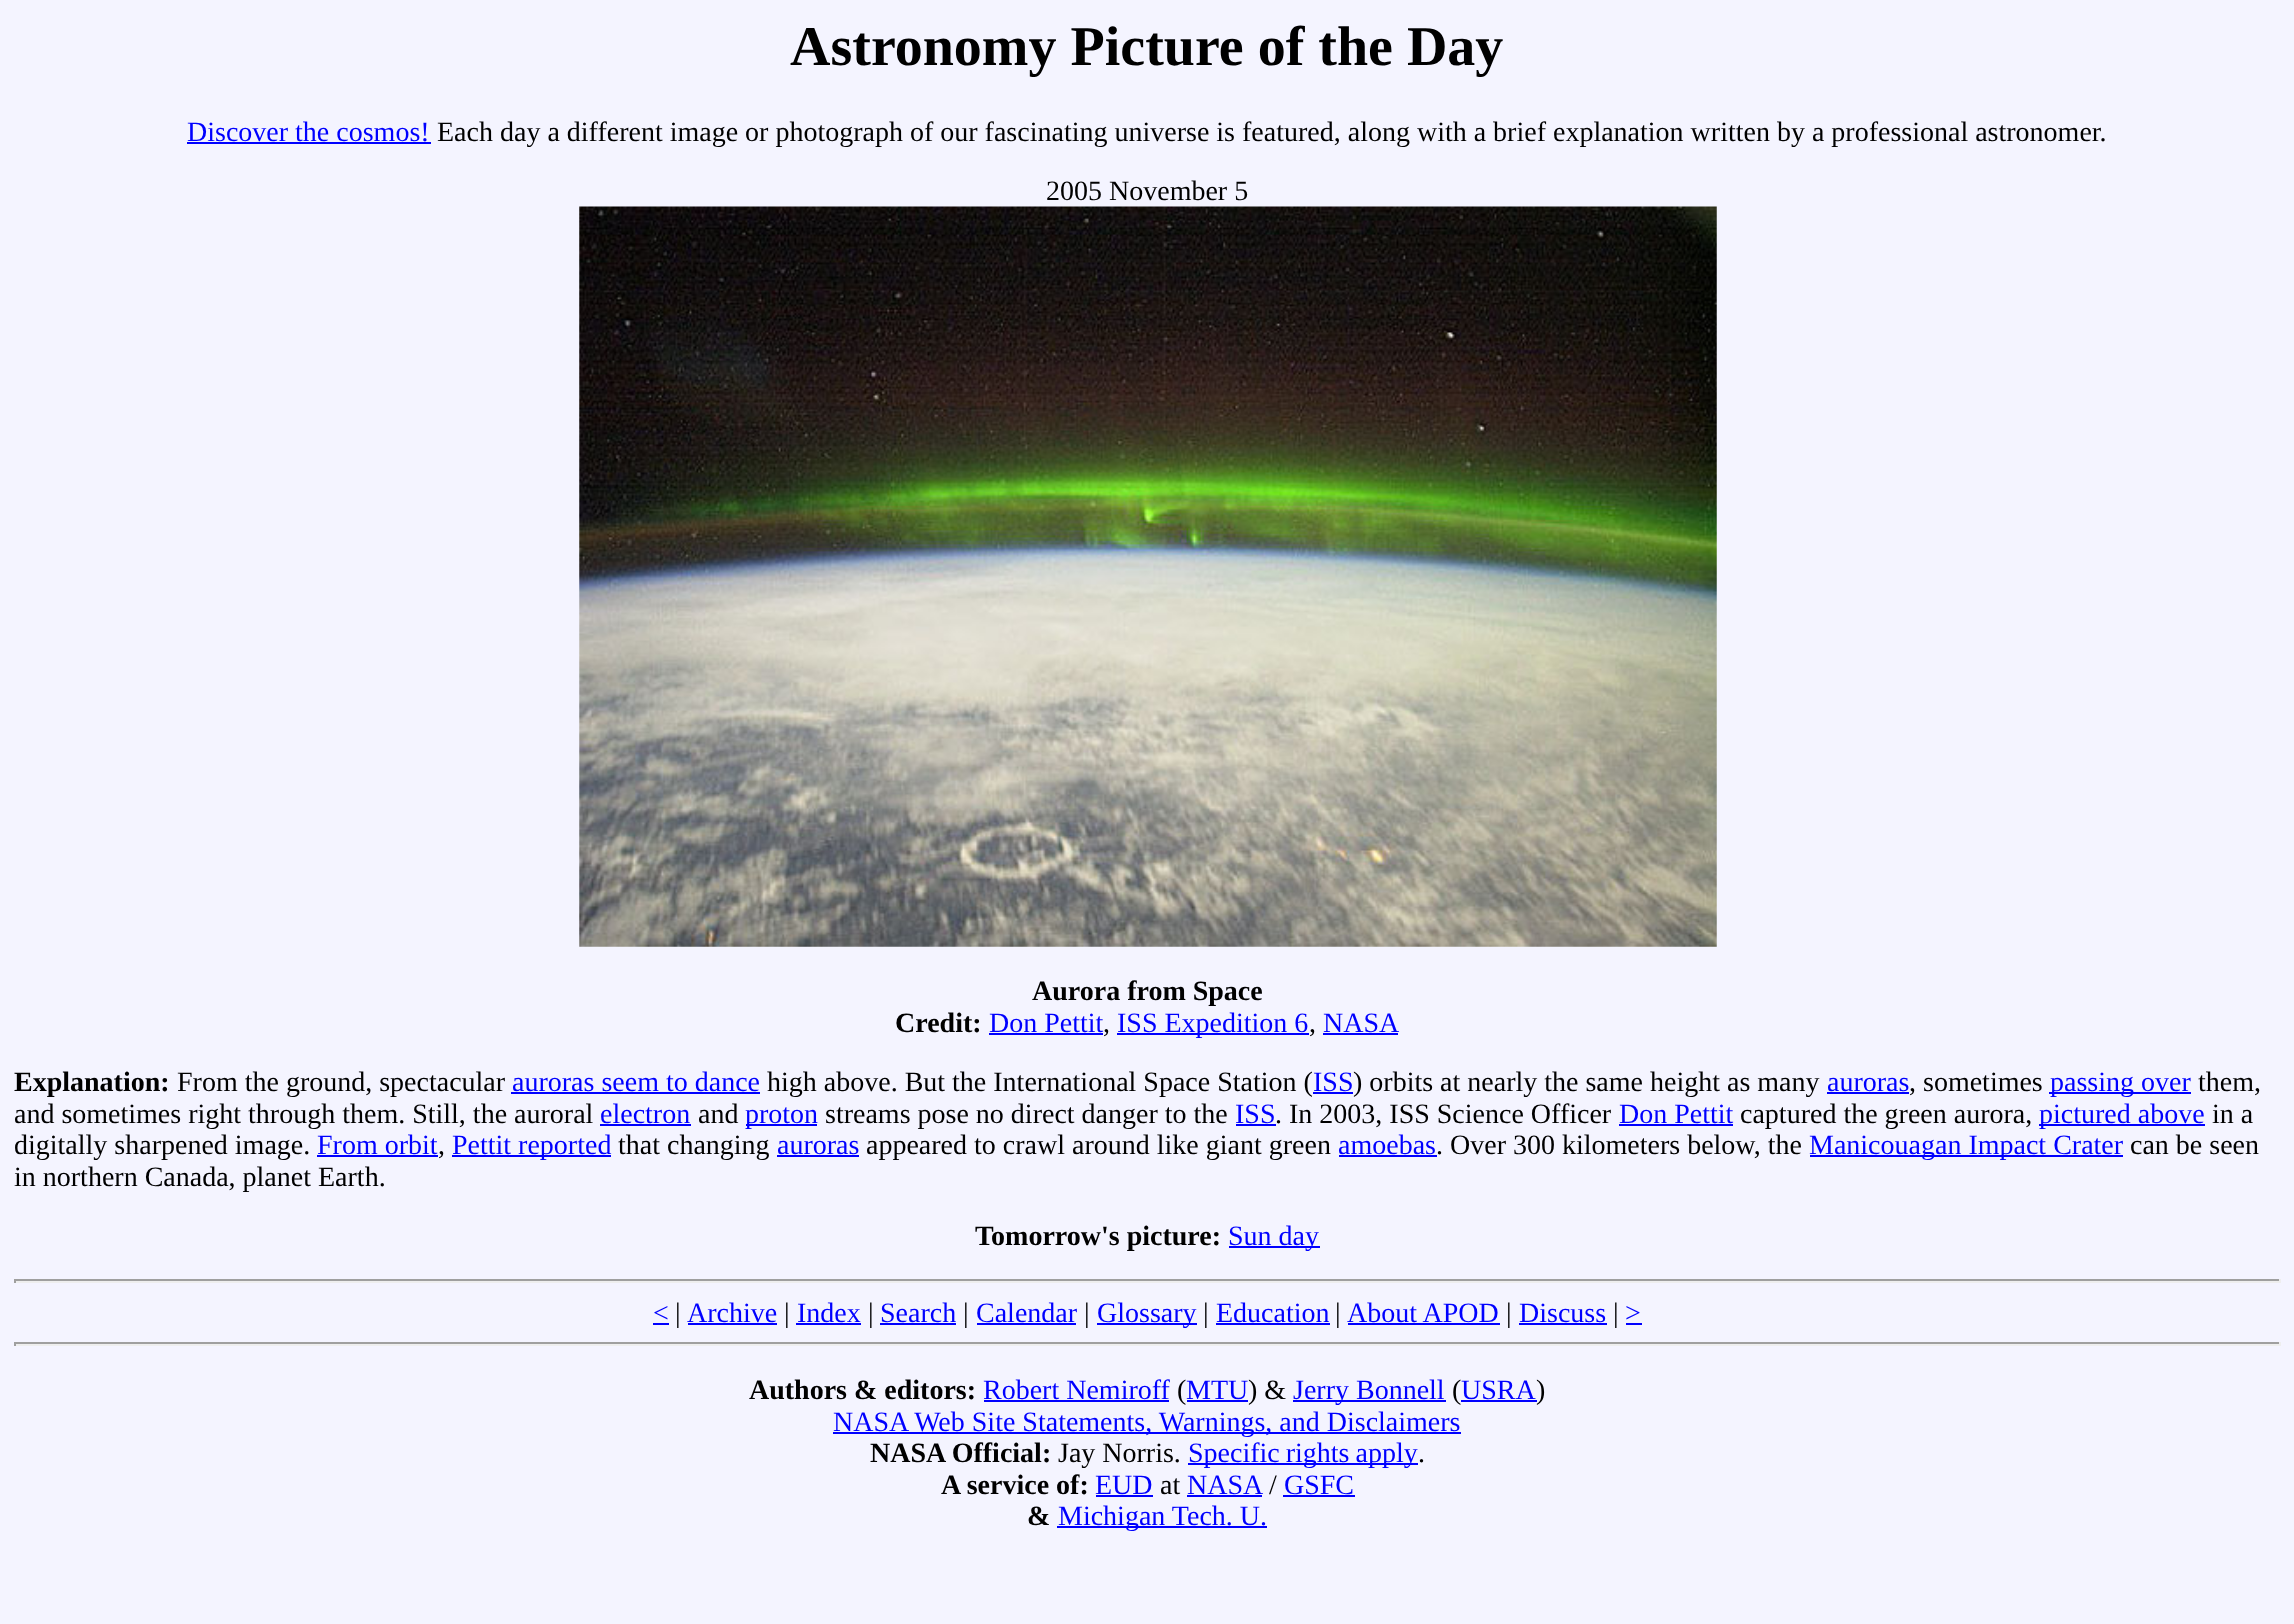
<?xml version="1.0" encoding="UTF-8"?>
<svg xmlns="http://www.w3.org/2000/svg" xmlns:xlink="http://www.w3.org/1999/xlink" width="2294" height="1624">
  <rect width="100%" height="100%" fill="#f4f4ff" />
  <rect x="187" y="142" width="244" height="2" fill="#0000ff" />
  <image x="579" y="206" width="1138" height="741" xlink:href="image1.png" />
  <rect x="989" y="1033" width="114" height="2" fill="#0000ff" />
  <rect x="1117" y="1033" width="192" height="2" fill="#0000ff" />
  <rect x="1323" y="1033" width="75" height="2" fill="#0000ff" />
  <rect x="511" y="1092" width="249" height="2" fill="#0000ff" />
  <rect x="1313" y="1092" width="40" height="2" fill="#0000ff" />
  <rect x="1827" y="1092" width="82" height="2" fill="#0000ff" />
  <rect x="2049" y="1092" width="142" height="2" fill="#0000ff" />
  <rect x="600" y="1124" width="91" height="2" fill="#0000ff" />
  <rect x="746" y="1124" width="71" height="2" fill="#0000ff" />
  <rect x="1236" y="1124" width="40" height="2" fill="#0000ff" />
  <rect x="1619" y="1124" width="114" height="2" fill="#0000ff" />
  <rect x="2039" y="1124" width="166" height="2" fill="#0000ff" />
  <rect x="317" y="1155" width="121" height="2" fill="#0000ff" />
  <rect x="452" y="1155" width="159" height="2" fill="#0000ff" />
  <rect x="777" y="1155" width="82" height="2" fill="#0000ff" />
  <rect x="1339" y="1155" width="98" height="2" fill="#0000ff" />
  <rect x="1810" y="1155" width="313" height="2" fill="#0000ff" />
  <rect x="1229" y="1246" width="91" height="2" fill="#0000ff" />
  <rect x="14" y="1279" width="2266" height="2" fill="#9f9f9f" />
  <rect x="2279" y="1279" width="2" height="4" fill="#eeeeee" />
  <rect x="14" y="1281" width="2266" height="2" fill="#eeeeee" />
  <rect x="14" y="1279" width="2" height="4" fill="#9f9f9f" />
  <rect x="653" y="1323" width="16" height="2" fill="#0000ff" />
  <rect x="688" y="1323" width="89" height="2" fill="#0000ff" />
  <rect x="796" y="1323" width="65" height="2" fill="#0000ff" />
  <rect x="880" y="1323" width="76" height="2" fill="#0000ff" />
  <rect x="977" y="1323" width="99" height="2" fill="#0000ff" />
  <rect x="1097" y="1323" width="100" height="2" fill="#0000ff" />
  <rect x="1216" y="1323" width="114" height="2" fill="#0000ff" />
  <rect x="1348" y="1323" width="152" height="2" fill="#0000ff" />
  <rect x="1519" y="1323" width="88" height="2" fill="#0000ff" />
  <rect x="1626" y="1323" width="16" height="2" fill="#0000ff" />
  <rect x="14" y="1342" width="2266" height="2" fill="#9f9f9f" />
  <rect x="2279" y="1342" width="2" height="4" fill="#eeeeee" />
  <rect x="14" y="1344" width="2266" height="2" fill="#eeeeee" />
  <rect x="14" y="1342" width="2" height="4" fill="#9f9f9f" />
  <rect x="984" y="1400" width="185" height="2" fill="#0000ff" />
  <rect x="1187" y="1400" width="61" height="2" fill="#0000ff" />
  <rect x="1293" y="1400" width="153" height="2" fill="#0000ff" />
  <rect x="1461" y="1400" width="76" height="2" fill="#0000ff" />
  <rect x="833" y="1432" width="628" height="2" fill="#0000ff" />
  <rect x="1188" y="1463" width="230" height="2" fill="#0000ff" />
  <rect x="1096" y="1495" width="57" height="2" fill="#0000ff" />
  <rect x="1187" y="1495" width="75" height="2" fill="#0000ff" />
  <rect x="1283" y="1495" width="72" height="2" fill="#0000ff" />
  <rect x="1057" y="1526" width="210" height="2" fill="#0000ff" />
  <text x="790" y="65" style="font-family: Liberation Serif; font-size: 56px; font-weight: bold; fill: #000000">Astronomy Picture of the Day</text>
  <text x="187" y="141" style="font-family: Liberation Serif; font-size: 28px; fill: #0000ff">Discover the cosmos!</text>
  <text x="437" y="141" style="font-family: Liberation Serif; font-size: 28px; fill: #000000">Each day a different image or photograph of our fascinating universe is featured, along with a brief explanation written by a professional astronomer.</text>
  <text x="1046" y="200" style="font-family: Liberation Serif; font-size: 28px; fill: #000000">2005 November 5</text>
  <text x="1032" y="1000" style="font-family: Liberation Serif; font-size: 28px; font-weight: bold; fill: #000000">Aurora from Space</text>
  <text x="895" y="1032" style="font-family: Liberation Serif; font-size: 28px; font-weight: bold; fill: #000000">Credit:</text>
  <text x="989" y="1032" style="font-family: Liberation Serif; font-size: 28px; fill: #0000ff">Don Pettit</text>
  <text x="1103" y="1032" style="font-family: Liberation Serif; font-size: 28px; fill: #000000">,</text>
  <text x="1117" y="1032" style="font-family: Liberation Serif; font-size: 28px; fill: #0000ff">ISS Expedition 6</text>
  <text x="1309" y="1032" style="font-family: Liberation Serif; font-size: 28px; fill: #000000">,</text>
  <text x="1323" y="1032" style="font-family: Liberation Serif; font-size: 28px; fill: #0000ff">NASA</text>
  <text x="14" y="1091" style="font-family: Liberation Serif; font-size: 28px; font-weight: bold; fill: #000000">Explanation:</text>
  <text x="177" y="1091" style="font-family: Liberation Serif; font-size: 28px; fill: #000000">From the ground, spectacular</text>
  <text x="512" y="1091" style="font-family: Liberation Serif; font-size: 28px; fill: #0000ff">auroras seem to dance</text>
  <text x="767" y="1091" style="font-family: Liberation Serif; font-size: 28px; fill: #000000">high above. But the International Space Station (</text>
  <text x="1313" y="1091" style="font-family: Liberation Serif; font-size: 28px; fill: #0000ff">ISS</text>
  <text x="1353" y="1091" style="font-family: Liberation Serif; font-size: 28px; fill: #000000">) orbits at nearly the same height as many</text>
  <text x="1827" y="1091" style="font-family: Liberation Serif; font-size: 28px; fill: #0000ff">auroras</text>
  <text x="1909" y="1091" style="font-family: Liberation Serif; font-size: 28px; fill: #000000">, sometimes</text>
  <text x="2050" y="1091" style="font-family: Liberation Serif; font-size: 28px; fill: #0000ff">passing over</text>
  <text x="2198" y="1091" style="font-family: Liberation Serif; font-size: 28px; fill: #000000">them,</text>
  <text x="14" y="1123" style="font-family: Liberation Serif; font-size: 28px; fill: #000000">and sometimes right through them. Still, the auroral</text>
  <text x="600" y="1123" style="font-family: Liberation Serif; font-size: 28px; fill: #0000ff">electron</text>
  <text x="698" y="1123" style="font-family: Liberation Serif; font-size: 28px; fill: #000000">and</text>
  <text x="745" y="1123" style="font-family: Liberation Serif; font-size: 28px; fill: #0000ff">proton</text>
  <text x="825" y="1123" style="font-family: Liberation Serif; font-size: 28px; fill: #000000">streams pose no direct danger to the</text>
  <text x="1235" y="1123" style="font-family: Liberation Serif; font-size: 28px; fill: #0000ff">ISS</text>
  <text x="1275" y="1123" style="font-family: Liberation Serif; font-size: 28px; fill: #000000">. In 2003, ISS Science Officer</text>
  <text x="1619" y="1123" style="font-family: Liberation Serif; font-size: 28px; fill: #0000ff">Don Pettit</text>
  <text x="1740" y="1123" style="font-family: Liberation Serif; font-size: 28px; fill: #000000">captured the green aurora,</text>
  <text x="2039" y="1123" style="font-family: Liberation Serif; font-size: 28px; fill: #0000ff">pictured above</text>
  <text x="2212" y="1123" style="font-family: Liberation Serif; font-size: 28px; fill: #000000">in a</text>
  <text x="14" y="1154" style="font-family: Liberation Serif; font-size: 28px; fill: #000000">digitally sharpened image.</text>
  <text x="317" y="1154" style="font-family: Liberation Serif; font-size: 28px; fill: #0000ff">From orbit</text>
  <text x="438" y="1154" style="font-family: Liberation Serif; font-size: 28px; fill: #000000">,</text>
  <text x="452" y="1154" style="font-family: Liberation Serif; font-size: 28px; fill: #0000ff">Pettit reported</text>
  <text x="618" y="1154" style="font-family: Liberation Serif; font-size: 28px; fill: #000000">that changing</text>
  <text x="777" y="1154" style="font-family: Liberation Serif; font-size: 28px; fill: #0000ff">auroras</text>
  <text x="866" y="1154" style="font-family: Liberation Serif; font-size: 28px; fill: #000000">appeared to crawl around like giant green</text>
  <text x="1338" y="1154" style="font-family: Liberation Serif; font-size: 28px; fill: #0000ff">amoebas</text>
  <text x="1436" y="1154" style="font-family: Liberation Serif; font-size: 28px; fill: #000000">. Over 300 kilometers below, the</text>
  <text x="1809" y="1154" style="font-family: Liberation Serif; font-size: 28px; fill: #0000ff">Manicouagan Impact Crater</text>
  <text x="2130" y="1154" style="font-family: Liberation Serif; font-size: 28px; fill: #000000">can be seen</text>
  <text x="14" y="1186" style="font-family: Liberation Serif; font-size: 28px; fill: #000000">in northern Canada, planet Earth.</text>
  <text x="975" y="1245" style="font-family: Liberation Serif; font-size: 28px; font-weight: bold; fill: #000000">Tomorrow's picture:</text>
  <text x="1228" y="1245" style="font-family: Liberation Serif; font-size: 28px; fill: #0000ff">Sun day</text>
  <text x="653" y="1322" style="font-family: Liberation Serif; font-size: 28px; fill: #0000ff">&lt;</text>
  <text x="675" y="1322" style="font-family: Liberation Serif; font-size: 28px; fill: #000000">|</text>
  <text x="687" y="1322" style="font-family: Liberation Serif; font-size: 28px; fill: #0000ff">Archive</text>
  <text x="784" y="1322" style="font-family: Liberation Serif; font-size: 28px; fill: #000000">|</text>
  <text x="797" y="1322" style="font-family: Liberation Serif; font-size: 28px; fill: #0000ff">Index</text>
  <text x="868" y="1322" style="font-family: Liberation Serif; font-size: 28px; fill: #000000">|</text>
  <text x="880" y="1322" style="font-family: Liberation Serif; font-size: 28px; fill: #0000ff">Search</text>
  <text x="963" y="1322" style="font-family: Liberation Serif; font-size: 28px; fill: #000000">|</text>
  <text x="976" y="1322" style="font-family: Liberation Serif; font-size: 28px; fill: #0000ff">Calendar</text>
  <text x="1084" y="1322" style="font-family: Liberation Serif; font-size: 28px; fill: #000000">|</text>
  <text x="1097" y="1322" style="font-family: Liberation Serif; font-size: 28px; fill: #0000ff">Glossary</text>
  <text x="1203" y="1322" style="font-family: Liberation Serif; font-size: 28px; fill: #000000">|</text>
  <text x="1216" y="1322" style="font-family: Liberation Serif; font-size: 28px; fill: #0000ff">Education</text>
  <text x="1335" y="1322" style="font-family: Liberation Serif; font-size: 28px; fill: #000000">|</text>
  <text x="1347" y="1322" style="font-family: Liberation Serif; font-size: 28px; fill: #0000ff">About APOD</text>
  <text x="1506" y="1322" style="font-family: Liberation Serif; font-size: 28px; fill: #000000">|</text>
  <text x="1519" y="1322" style="font-family: Liberation Serif; font-size: 28px; fill: #0000ff">Discuss</text>
  <text x="1613" y="1322" style="font-family: Liberation Serif; font-size: 28px; fill: #000000">|</text>
  <text x="1625" y="1322" style="font-family: Liberation Serif; font-size: 28px; fill: #0000ff">&gt;</text>
  <text x="749" y="1399" style="font-family: Liberation Serif; font-size: 28px; font-weight: bold; fill: #000000">Authors &amp; editors:</text>
  <text x="983" y="1399" style="font-family: Liberation Serif; font-size: 28px; fill: #0000ff">Robert Nemiroff</text>
  <text x="1177" y="1399" style="font-family: Liberation Serif; font-size: 28px; fill: #000000">(</text>
  <text x="1186" y="1399" style="font-family: Liberation Serif; font-size: 28px; fill: #0000ff">MTU</text>
  <text x="1248" y="1399" style="font-family: Liberation Serif; font-size: 28px; fill: #000000">) &amp;</text>
  <text x="1293" y="1399" style="font-family: Liberation Serif; font-size: 28px; fill: #0000ff">Jerry Bonnell</text>
  <text x="1452" y="1399" style="font-family: Liberation Serif; font-size: 28px; fill: #000000">(</text>
  <text x="1461" y="1399" style="font-family: Liberation Serif; font-size: 28px; fill: #0000ff">USRA</text>
  <text x="1536" y="1399" style="font-family: Liberation Serif; font-size: 28px; fill: #000000">)</text>
  <text x="833" y="1431" style="font-family: Liberation Serif; font-size: 28px; fill: #0000ff">NASA Web Site Statements, Warnings, and Disclaimers</text>
  <text x="870" y="1462" style="font-family: Liberation Serif; font-size: 28px; font-weight: bold; fill: #000000">NASA Official:</text>
  <text x="1058" y="1462" style="font-family: Liberation Serif; font-size: 28px; fill: #000000">Jay Norris.</text>
  <text x="1188" y="1462" word-spacing="-1" style="font-family: Liberation Serif; font-size: 28px; fill: #0000ff">Specific rights apply</text>
  <text x="1418" y="1462" style="font-family: Liberation Serif; font-size: 28px; fill: #000000">.</text>
  <text x="941" y="1494" style="font-family: Liberation Serif; font-size: 28px; font-weight: bold; fill: #000000">A service of:</text>
  <text x="1095" y="1494" style="font-family: Liberation Serif; font-size: 28px; fill: #0000ff">EUD</text>
  <text x="1160" y="1494" style="font-family: Liberation Serif; font-size: 28px; fill: #000000">at</text>
  <text x="1187" y="1494" style="font-family: Liberation Serif; font-size: 28px; fill: #0000ff">NASA</text>
  <text x="1269" y="1494" style="font-family: Liberation Serif; font-size: 28px; fill: #000000">/</text>
  <text x="1284" y="1494" style="font-family: Liberation Serif; font-size: 28px; fill: #0000ff">GSFC</text>
  <text x="1027" y="1525" style="font-family: Liberation Serif; font-size: 28px; font-weight: bold; fill: #000000">&amp;</text>
  <text x="1058" y="1525" style="font-family: Liberation Serif; font-size: 28px; fill: #0000ff">Michigan Tech. U.</text>
</svg>
